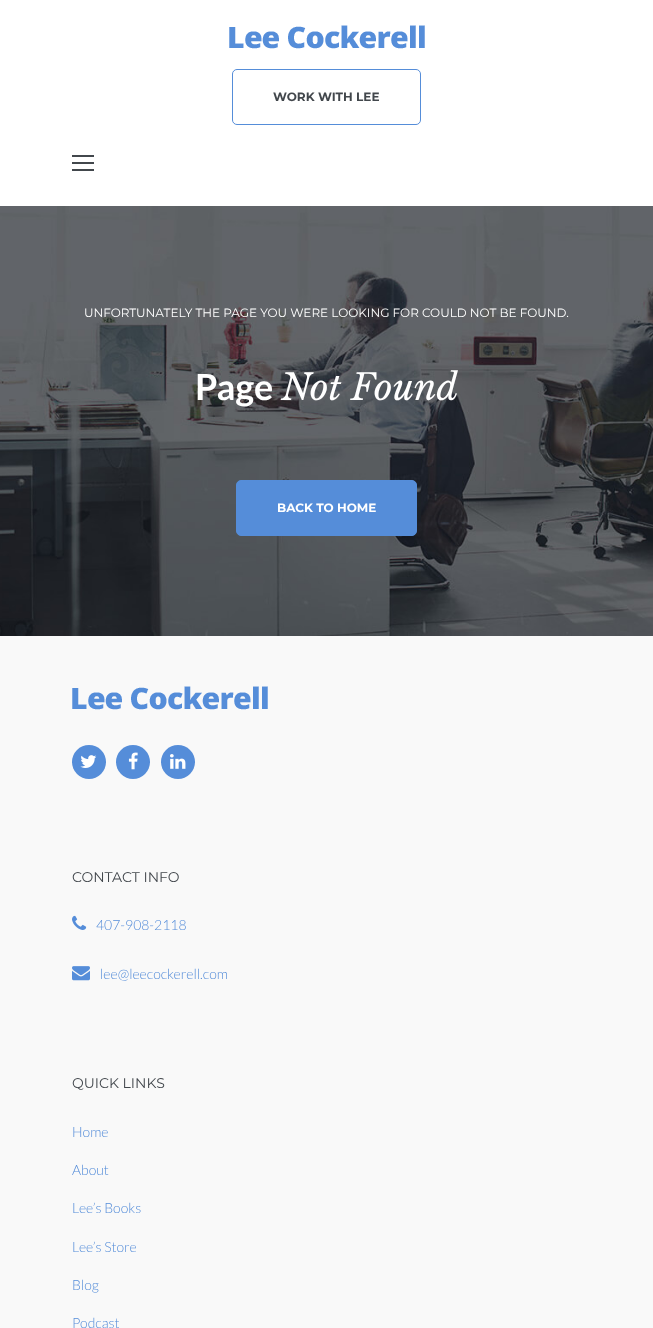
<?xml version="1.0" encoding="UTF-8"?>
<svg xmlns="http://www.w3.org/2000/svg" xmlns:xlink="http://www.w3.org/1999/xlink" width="653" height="1328">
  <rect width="100%" height="100%" fill="#ffffff" />
  <image x="229" y="25" width="196" height="24" xlink:href="image1.png" />
  <rect x="232.5" y="69.5" width="188" height="55" rx="4.5" fill="none" stroke="#558dd9" />
  <rect x="72" y="162" width="22" height="2" fill="#42474c" />
  <rect x="72" y="155" width="22" height="2" fill="#42474c" />
  <rect x="72" y="169" width="22" height="2" fill="#42474c" />
  <image x="0" y="206" width="653" height="430" xlink:href="image2.png" />
  <rect x="236.5" y="480.5" width="180" height="55" rx="4.5" fill="#558dd9" stroke="#558dd9" />
  <rect y="636" width="653" height="692" fill="#f9f9f9" />
  <image x="72" y="686" width="196" height="24" xlink:href="image3.png" />
  <circle cx="89" cy="762" r="17" fill="#558dd9" />
  <image x="80" y="755" width="17" height="13" xlink:href="image4.png" />
  <circle cx="133" cy="762" r="17" fill="#558dd9" />
  <image x="128" y="752" width="10" height="18" xlink:href="image5.png" />
  <circle cx="178" cy="762" r="17" fill="#558dd9" />
  <image x="170" y="754" width="16" height="15" xlink:href="image6.png" />
  <image x="72" y="915" width="15" height="15" xlink:href="image7.png" />
  <image x="72" y="966" width="18" height="15" xlink:href="image8.png" />
  <text x="273" y="101" style="font-family: Montserrat; font-size: 12px; font-weight: bold; fill: #42474c">WORK WITH LEE</text>
  <text x="84" y="317" style="font-family: Montserrat; font-size: 12px; fill: #ffffff">UNFORTUNATELY THE PAGE YOU WERE LOOKING FOR COULD NOT BE FOUND.</text>
  <text x="195" y="400" style="font-family: Lato; font-size: 36px; font-weight: bold; fill: #ffffff">Page</text>
  <text x="281" y="400" style="font-family: Libre Baskerville; font-size: 36px; font-style: italic; fill: #ffffff">Not Found</text>
  <text x="277" y="512" style="font-family: Montserrat; font-size: 12px; font-weight: bold; fill: #ffffff">BACK TO HOME</text>
  <text x="72" y="882" style="font-family: Montserrat; font-size: 14px; fill: #42474c">CONTACT INFO</text>
  <text x="96" y="930" style="font-family: Lato; font-size: 14px; font-weight: 300; fill: #558dd9">407-908-2118</text>
  <text x="100" y="979" style="font-family: Lato; font-size: 14px; font-weight: 300; fill: #558dd9">lee@leecockerell.com</text>
  <text x="72" y="1088" style="font-family: Montserrat; font-size: 14px; fill: #42474c">QUICK LINKS</text>
  <text x="72" y="1137" style="font-family: Lato; font-size: 14px; font-weight: 300; fill: #558dd9">Home</text>
  <text x="72" y="1175" style="font-family: Lato; font-size: 14px; font-weight: 300; fill: #558dd9">About</text>
  <text x="72" y="1213" style="font-family: Lato; font-size: 14px; font-weight: 300; fill: #558dd9">Lee’s Books</text>
  <text x="72" y="1252" style="font-family: Lato; font-size: 14px; font-weight: 300; fill: #558dd9">Lee’s Store</text>
  <text x="72" y="1290" style="font-family: Lato; font-size: 14px; font-weight: 300; fill: #558dd9">Blog</text>
  <text x="72" y="1328" style="font-family: Lato; font-size: 14px; font-weight: 300; fill: #558dd9">Podcast</text>
</svg>
